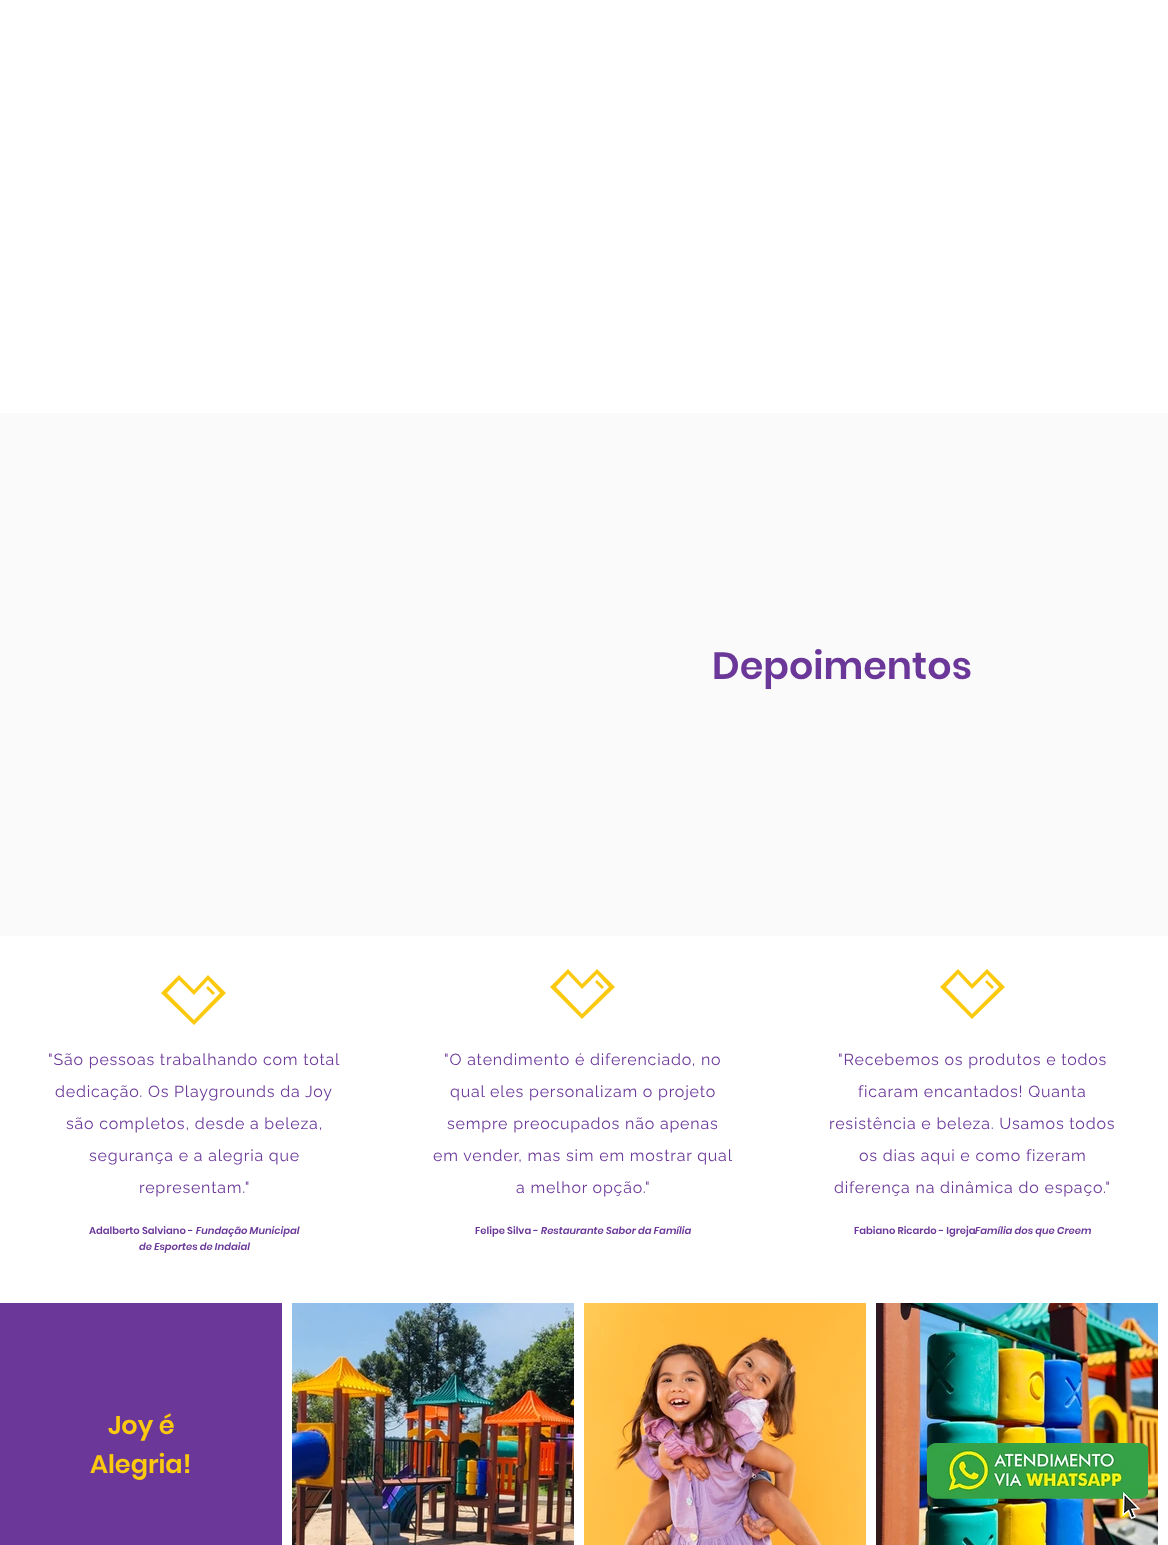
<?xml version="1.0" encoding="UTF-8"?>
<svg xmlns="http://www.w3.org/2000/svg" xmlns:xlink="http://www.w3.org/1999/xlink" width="1168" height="1545">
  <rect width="100%" height="100%" fill="#ffffff" />
  <rect y="413" width="1168" height="523" fill="#fafafa" />
  <path d="M 215 993 l -2 2 l -7 -7 l 2 -2 z m 11 0 l -32 32 l -33 -32 l 18 -18 l 15 15 l 14 -15 z m -32 27 l 26 -27 l -12 -13 l -14 15 l -15 -15 l -12 13 z" fill="#fbc90f" />
  <path d="M 604 987 l -2 2 l -7 -7 l 2 -2 z m 11 0 l -33 32 l -32 -32 l 18 -18 l 14 15 l 15 -15 z m -33 27 l 27 -27 l -12 -13 l -15 15 l -14 -15 l -12 13 z" fill="#fbc90f" />
  <path d="M 994 987 l -2 2 l -7 -7 l 2 -2 z m 11 0 l -33 32 l -32 -32 l 18 -18 l 14 15 l 15 -15 z m -33 27 l 27 -27 l -12 -13 l -15 15 l -14 -15 l -12 13 z" fill="#fbc90f" />
  <rect y="1303" width="282" height="242" fill="#6b3899" />
  <image x="292" y="1303" width="282" height="242" xlink:href="image1.png" />
  <image x="584" y="1303" width="282" height="242" xlink:href="image2.png" />
  <image x="876" y="1303" width="282" height="242" xlink:href="image3.png" />
  <image x="927" y="1443" width="221" height="77" xlink:href="image4.png" />
  <text x="712" y="679" style="font-family: Poppins; font-size: 38px; font-weight: 600; fill: #6b3899">Depoimentos</text>
  <text x="48" y="1065" style="font-family: Raleway; font-size: 16px; letter-spacing: 0.8px; fill: #6b3899">"São pessoas trabalhando com total</text>
  <text x="55" y="1097" style="font-family: Raleway; font-size: 16px; letter-spacing: 0.8px; fill: #6b3899">dedicação. Os Playgrounds da Joy</text>
  <text x="66" y="1129" style="font-family: Raleway; font-size: 16px; letter-spacing: 0.8px; fill: #6b3899">são completos, desde a beleza,</text>
  <text x="89" y="1161" style="font-family: Raleway; font-size: 16px; letter-spacing: 0.8px; fill: #6b3899">segurança e a alegria que</text>
  <text x="139" y="1193" style="font-family: Raleway; font-size: 16px; letter-spacing: 0.8px; fill: #6b3899">representam."</text>
  <text x="89" y="1234" style="font-family: Poppins; font-size: 10px; font-weight: 600; fill: #6b3899">Adalberto Salviano -</text>
  <text x="196" y="1234" style="font-family: Poppins; font-size: 10px; font-weight: 600; font-style: italic; fill: #6b3899">Fundação Municipal</text>
  <text x="139" y="1250" style="font-family: Poppins; font-size: 10px; font-weight: 600; font-style: italic; fill: #6b3899">de Esportes de Indaial</text>
  <text x="444" y="1065" style="font-family: Raleway; font-size: 16px; letter-spacing: 0.8px; fill: #6b3899">"O atendimento é diferenciado, no</text>
  <text x="450" y="1097" style="font-family: Raleway; font-size: 16px; letter-spacing: 0.8px; fill: #6b3899">qual eles personalizam o projeto</text>
  <text x="447" y="1129" style="font-family: Raleway; font-size: 16px; letter-spacing: 0.8px; fill: #6b3899">sempre preocupados não apenas</text>
  <text x="433" y="1161" style="font-family: Raleway; font-size: 16px; letter-spacing: 0.8px; fill: #6b3899">em vender, mas sim em mostrar qual</text>
  <text x="516" y="1193" style="font-family: Raleway; font-size: 16px; letter-spacing: 0.8px; fill: #6b3899">a melhor opção."</text>
  <text x="475" y="1234" style="font-family: Poppins; font-size: 10px; font-weight: 600; fill: #6b3899">Felipe Silva -</text>
  <text x="541" y="1234" style="font-family: Poppins; font-size: 10px; font-weight: 600; font-style: italic; fill: #6b3899">Restaurante Sabor da Família</text>
  <text x="838" y="1065" style="font-family: Raleway; font-size: 16px; letter-spacing: 0.8px; fill: #6b3899">"Recebemos os produtos e todos</text>
  <text x="858" y="1097" style="font-family: Raleway; font-size: 16px; letter-spacing: 0.8px; fill: #6b3899">ficaram encantados! Quanta</text>
  <text x="829" y="1129" style="font-family: Raleway; font-size: 16px; letter-spacing: 0.8px; fill: #6b3899">resistência e beleza. Usamos todos</text>
  <text x="859" y="1161" style="font-family: Raleway; font-size: 16px; letter-spacing: 0.8px; fill: #6b3899">os dias aqui e como fizeram</text>
  <text x="834" y="1193" style="font-family: Raleway; font-size: 16px; letter-spacing: 0.8px; fill: #6b3899">diferença na dinâmica do espaço."</text>
  <text x="854" y="1234" style="font-family: Poppins; font-size: 10px; font-weight: 600; fill: #6b3899">Fabiano Ricardo - Igreja</text>
  <text x="975" y="1234" style="font-family: Poppins; font-size: 10px; font-weight: 600; font-style: italic; fill: #6b3899">Família dos que Creem</text>
  <text x="108" y="1434" style="font-family: Poppins; font-size: 25.5px; font-weight: 600; fill: #fbc90f">Joy é</text>
  <text x="90" y="1473" style="font-family: Poppins; font-size: 25.5px; font-weight: 600; fill: #fbc90f">Alegria!</text>
</svg>
